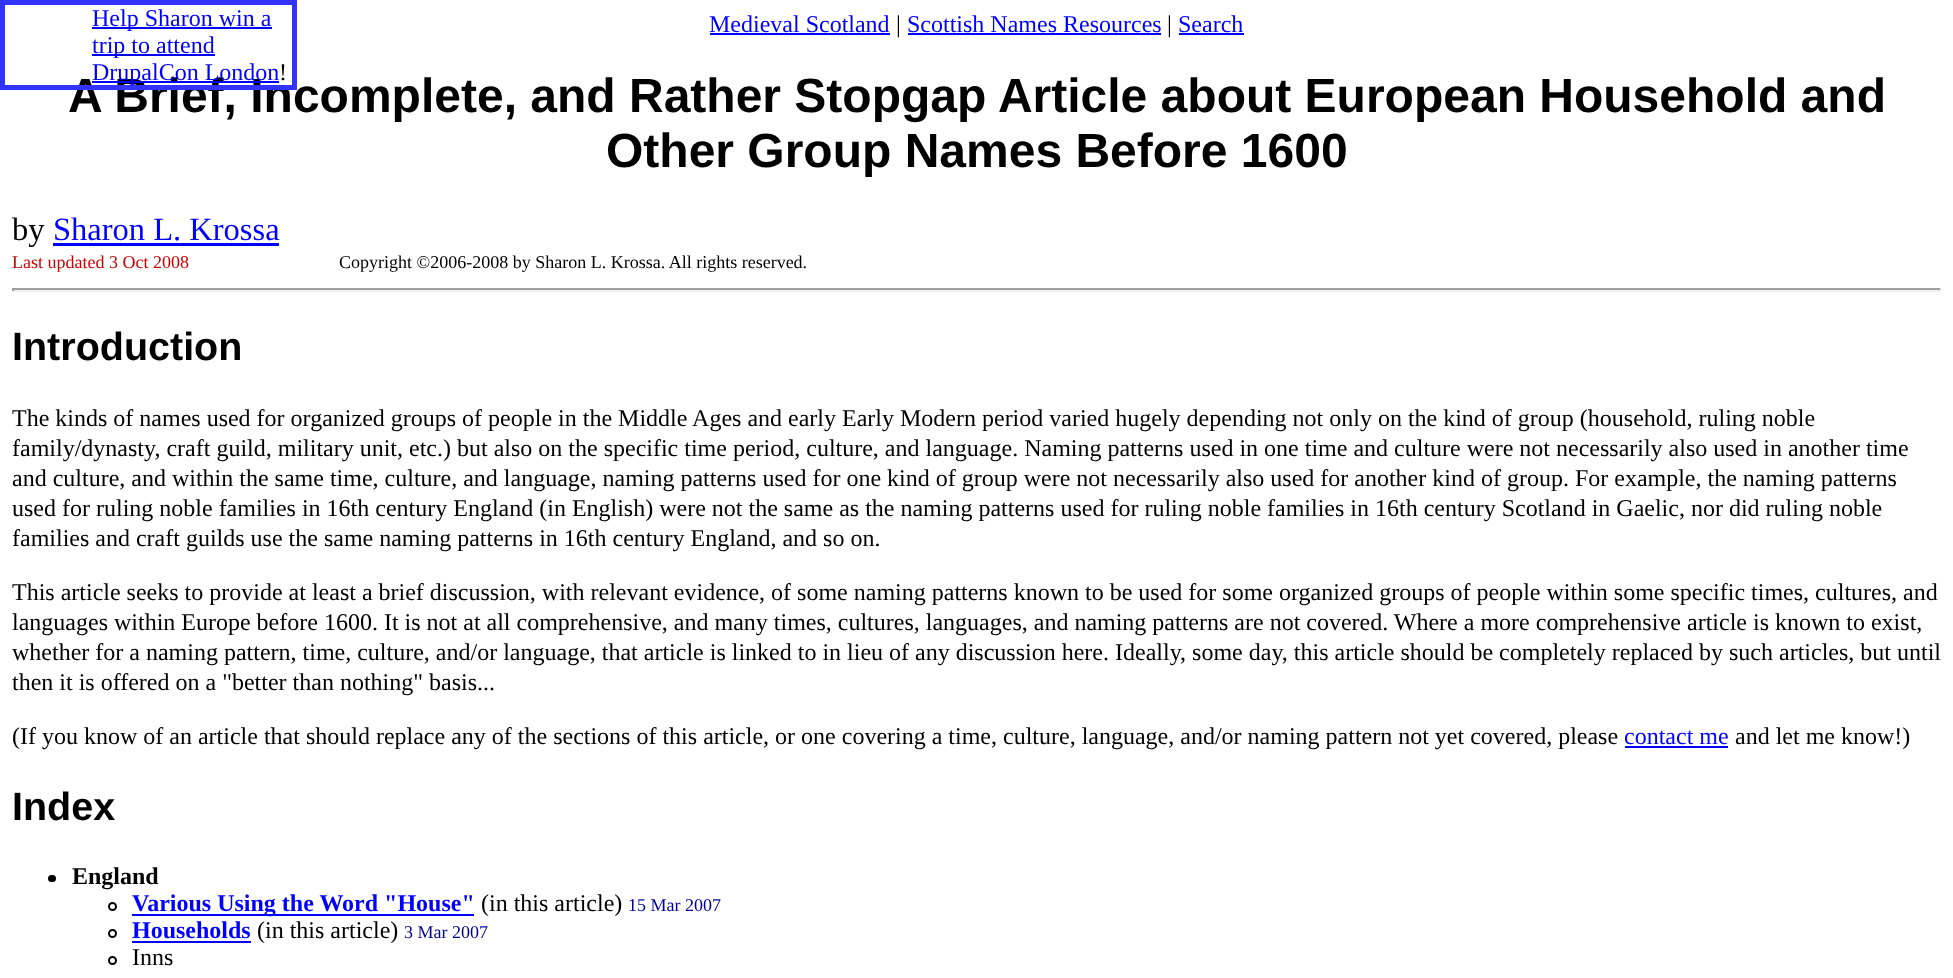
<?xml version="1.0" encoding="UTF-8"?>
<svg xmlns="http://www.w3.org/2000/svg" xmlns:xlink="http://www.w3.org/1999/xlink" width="1953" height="978">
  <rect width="100%" height="100%" fill="#ffffff" />
  <rect x="92" y="27" width="180" height="2" fill="#0000ff" />
  <rect x="92" y="54" width="123" height="2" fill="#0000ff" />
  <rect x="710" y="33" width="180" height="2" fill="#0000ff" />
  <rect x="908" y="33" width="253" height="2" fill="#0000ff" />
  <rect x="1179" y="33" width="65" height="2" fill="#0000ff" />
  <rect x="53" y="243" width="226" height="3" fill="#0000ff" />
  <rect x="12" y="288" width="1929" height="2" fill="#9f9f9f" />
  <rect x="1940" y="288" width="2" height="3" fill="#eeeeee" />
  <rect x="12" y="290" width="1929" height="2" fill="#eeeeee" />
  <rect x="12" y="288" width="2" height="3" fill="#9f9f9f" />
  <rect x="1625" y="746" width="103" height="2" fill="#0000ff" />
  <rect x="48" y="875" width="8" height="7" rx="3.5" fill="#000000" />
  <circle cx="112.5" cy="906.5" r="3.5" fill="none" stroke="#000000" stroke-width="2" />
  <rect x="132" y="914" width="342" height="2" fill="#0000ff" />
  <circle cx="112.5" cy="933.5" r="3.5" fill="none" stroke="#000000" stroke-width="2" />
  <rect x="132" y="941" width="119" height="2" fill="#0000ff" />
  <circle cx="112.5" cy="960.5" r="3.5" fill="none" stroke="#000000" stroke-width="2" />
  <text x="92" y="26" style="font-family: Liberation Serif; font-size: 24px; fill: #0000ff">Help Sharon win a</text>
  <text x="92" y="53" style="font-family: Liberation Serif; font-size: 24px; fill: #0000ff">trip to attend</text>
  <text x="279" y="80" style="font-family: Liberation Serif; font-size: 24px; fill: #000000">!</text>
  <text x="709" y="32" style="font-family: Liberation Serif; font-size: 24px; fill: #0000ff">Medieval Scotland</text>
  <text x="896" y="32" style="font-family: Liberation Serif; font-size: 24px; fill: #000000">|</text>
  <text x="907" y="32" style="font-family: Liberation Serif; font-size: 24px; fill: #0000ff">Scottish Names Resources</text>
  <text x="1167" y="32" style="font-family: Liberation Serif; font-size: 24px; fill: #000000">|</text>
  <text x="1178" y="32" style="font-family: Liberation Serif; font-size: 24px; fill: #0000ff">Search</text>
  <text x="68" y="112" style="font-family: Liberation Sans; font-size: 48px; font-weight: bold; fill: #000000">A Brief, Incomplete, and Rather Stopgap Article about European Household and</text>
  <rect x="92" y="81" width="187" height="2" fill="#0000ff" />
  <text x="92" y="80" style="font-family: Liberation Serif; font-size: 24px; fill: #0000ff">DrupalCon London</text>
  <rect x="2.5" y="2.5" width="292" height="85" fill="none" stroke="#3333ff" stroke-width="5" />
  <text x="606" y="167" style="font-family: Liberation Sans; font-size: 48px; font-weight: bold; fill: #000000">Other Group Names Before 1600</text>
  <text x="12" y="240" style="font-family: Liberation Serif; font-size: 32.5px; fill: #000000">by</text>
  <text x="53" y="240" style="font-family: Liberation Serif; font-size: 32.5px; fill: #0000ff">Sharon L. Krossa</text>
  <text x="12" y="268" style="font-family: Liberation Serif; font-size: 18px; fill: #cc0000">Last updated 3 Oct 2008</text>
  <text x="339" y="268" style="font-family: Liberation Serif; font-size: 18px; fill: #000000">Copyright ©2006-2008 by Sharon L. Krossa. All rights reserved.</text>
  <text x="12" y="360" style="font-family: Liberation Sans; font-size: 39.5px; font-weight: bold; fill: #000000">Introduction</text>
  <text x="12" y="426" style="font-family: Liberation Serif; font-size: 24px; fill: #000000">The kinds of names used for organized groups of people in the Middle Ages and early Early Modern period varied hugely depending not only on the kind of group (household, ruling noble</text>
  <text x="12" y="456" style="font-family: Liberation Serif; font-size: 24px; fill: #000000">family/dynasty, craft guild, military unit, etc.) but also on the specific time period, culture, and language. Naming patterns used in one time and culture were not necessarily also used in another time</text>
  <text x="12" y="486" style="font-family: Liberation Serif; font-size: 24px; fill: #000000">and culture, and within the same time, culture, and language, naming patterns used for one kind of group were not necessarily also used for another kind of group. For example, the naming patterns</text>
  <text x="12" y="516" style="font-family: Liberation Serif; font-size: 24px; fill: #000000">used for ruling noble families in 16th century England (in English) were not the same as the naming patterns used for ruling noble families in 16th century Scotland in Gaelic, nor did ruling noble</text>
  <text x="12" y="546" style="font-family: Liberation Serif; font-size: 24px; fill: #000000">families and craft guilds use the same naming patterns in 16th century England, and so on.</text>
  <text x="12" y="600" style="font-family: Liberation Serif; font-size: 24px; fill: #000000">This article seeks to provide at least a brief discussion, with relevant evidence, of some naming patterns known to be used for some organized groups of people within some specific times, cultures, and</text>
  <text x="12" y="630" style="font-family: Liberation Serif; font-size: 24px; fill: #000000">languages within Europe before 1600. It is not at all comprehensive, and many times, cultures, languages, and naming patterns are not covered. Where a more comprehensive article is known to exist,</text>
  <text x="12" y="660" style="font-family: Liberation Serif; font-size: 24px; fill: #000000">whether for a naming pattern, time, culture, and/or language, that article is linked to in lieu of any discussion here. Ideally, some day, this article should be completely replaced by such articles, but until</text>
  <text x="12" y="690" style="font-family: Liberation Serif; font-size: 24px; fill: #000000">then it is offered on a "better than nothing" basis...</text>
  <text x="12" y="744" style="font-family: Liberation Serif; font-size: 24px; fill: #000000">(If you know of an article that should replace any of the sections of this article, or one covering a time, culture, language, and/or naming pattern not yet covered, please</text>
  <text x="1624" y="744" style="font-family: Liberation Serif; font-size: 24px; fill: #0000ff">contact me</text>
  <text x="1735" y="744" style="font-family: Liberation Serif; font-size: 24px; fill: #000000">and let me know!)</text>
  <text x="12" y="820" style="font-family: Liberation Sans; font-size: 39.5px; font-weight: bold; fill: #000000">Index</text>
  <text x="72" y="884" style="font-family: Liberation Serif; font-size: 24px; font-weight: bold; fill: #000000">England</text>
  <text x="132" y="911" style="font-family: Liberation Serif; font-size: 24px; font-weight: bold; fill: #0000ff">Various Using the Word "House"</text>
  <text x="481" y="911" style="font-family: Liberation Serif; font-size: 24px; fill: #000000">(in this article)</text>
  <text x="628" y="911" style="font-family: Liberation Serif; font-size: 18px; fill: #000099">15 Mar 2007</text>
  <text x="132" y="938" style="font-family: Liberation Serif; font-size: 24px; font-weight: bold; fill: #0000ff">Households</text>
  <text x="257" y="938" style="font-family: Liberation Serif; font-size: 24px; fill: #000000">(in this article)</text>
  <text x="404" y="938" style="font-family: Liberation Serif; font-size: 18px; fill: #000099">3 Mar 2007</text>
  <text x="132" y="965" style="font-family: Liberation Serif; font-size: 24px; fill: #000000">Inns</text>
</svg>
